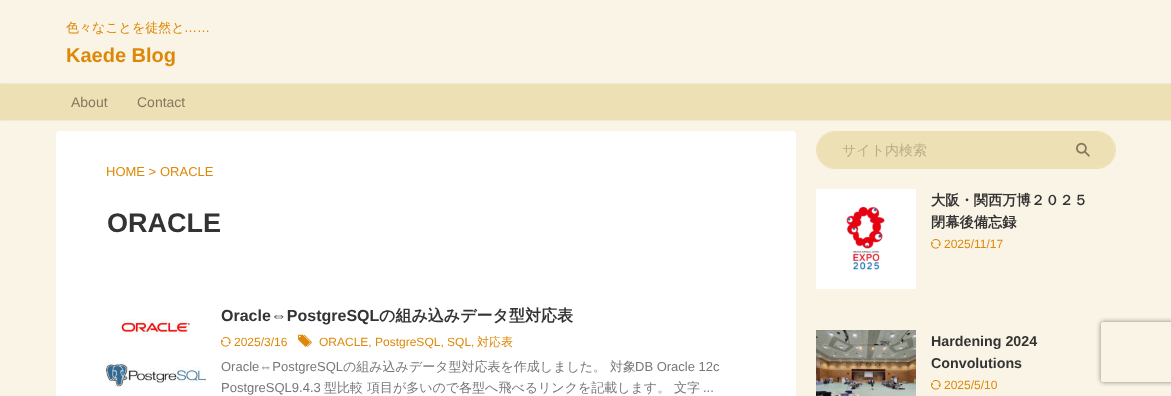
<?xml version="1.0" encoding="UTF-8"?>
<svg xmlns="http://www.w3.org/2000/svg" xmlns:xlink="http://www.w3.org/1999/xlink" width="1171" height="396">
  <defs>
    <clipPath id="clip1"><path d="M 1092 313 h 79 v 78 h -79 z m 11 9 h 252 c 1 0 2 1 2 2 v 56 c 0 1 -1 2 -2 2 h -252 c -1 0 -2 -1 -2 -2 v -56 c 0 -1 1 -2 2 -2 z" clip-rule="evenodd" /></clipPath>
  </defs>
  <rect width="100%" height="100%" fill="#f9f4e5" />
  <rect y="83" width="1171" height="38" rx="1" fill="#eee0b5" />
  <rect x="1" y="83" width="1170" height="1" fill="#ede9de" />
  <rect x="1" y="120" width="1170" height="1" fill="#ede9de" />
  <rect x="56" y="131" width="740" height="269" rx="4" fill="#ffffff" />
  <image x="106" y="319" width="100" height="69" xlink:href="image1.png" />
  <image x="221" y="337" width="10" height="10" xlink:href="image2.png" />
  <image x="298" y="334" width="14" height="13" xlink:href="image3.png" />
  <rect x="816.5" y="131.5" width="299" height="37" rx="18.5" fill="none" stroke="#eee0b5" />
  <path d="M 835 132 h 216 v 36 h -216 c -10 0 -18 -8 -18 -18 c 0 -10 8 -18 18 -18 z" fill="#eee0b5" />
  <path d="M 1051 132 h 46 c 10 0 18 8 18 18 c 0 10 -8 18 -18 18 h -46 z" fill="#eee0b5" />
  <image x="1076" y="142" width="14" height="15" xlink:href="image4.png" />
  <rect x="816" y="309" width="300" height="1" fill="#f3f3f3" />
  <image x="816" y="189" width="100" height="100" xlink:href="image5.png" />
  <image x="931" y="239" width="10" height="10" xlink:href="image6.png" />
  <image x="816" y="330" width="100" height="66" xlink:href="image7.png" />
  <image x="931" y="380" width="10" height="10" xlink:href="image6.png" />
  <g clip-path="url(#clip1)">
    <rect x="1101" y="322" width="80" height="60" rx="2" fill="#808080" filter="blur(2.5px)" />
  </g>
  <text x="66" y="32" style="font-family: WenQuanYi Zen Hei; font-size: 13px; font-weight: 500; fill: #dd8808">色々なことを徒然と</text>
  <text x="184" y="32" style="font-family: Liberation Sans; font-size: 13px; fill: #dd8808">……</text>
  <text x="66" y="62" style="font-family: Liberation Sans; font-size: 20px; font-weight: bold; fill: #dd8808">Kaede Blog</text>
  <text x="71" y="107" style="font-family: Liberation Sans; font-size: 14px; fill: #87775c">About</text>
  <text x="137" y="107" style="font-family: Liberation Sans; font-size: 14px; fill: #87775c">Contact</text>
  <text x="106" y="176" style="font-family: Liberation Sans; font-size: 13px; fill: #dd8808">HOME &gt;</text>
  <text x="160" y="176" style="font-family: Liberation Sans; font-size: 13px; fill: #dd8808">ORACLE</text>
  <text x="107" y="232" style="font-family: Liberation Sans; font-size: 27px; font-weight: bold; fill: #333333">ORACLE</text>
  <text x="221" y="321" style="font-family: Liberation Sans; font-size: 16px; font-weight: bold; fill: #333333">Oracle⇔PostgreSQL</text>
  <text x="379" y="321" style="font-family: WenQuanYi Zen Hei; font-size: 16px; font-weight: bold; fill: #333333">の組み込みデータ型対応表</text>
  <text x="234" y="346" style="font-family: Liberation Sans; font-size: 12px; fill: #dd8808">2025/3/16</text>
  <text x="319" y="346" style="font-family: Liberation Sans; font-size: 12px; fill: #dd8808">ORACLE, PostgreSQL, SQL,</text>
  <text x="477" y="346" style="font-family: WenQuanYi Zen Hei; font-size: 12px; font-weight: 500; fill: #dd8808">対応表</text>
  <text x="221" y="371" style="font-family: Liberation Sans; font-size: 13px; fill: #777777">Oracle⇔PostgreSQL</text>
  <text x="343" y="371" style="font-family: WenQuanYi Zen Hei; font-size: 13px; font-weight: 500; fill: #777777">の組み込みデータ型対応表を作成しました。 対象</text>
  <text x="635" y="371" style="font-family: Liberation Sans; font-size: 13px; fill: #777777">DB Oracle 12c</text>
  <text x="221" y="392" style="font-family: Liberation Sans; font-size: 13px; fill: #777777">PostgreSQL9.4.3</text>
  <text x="324" y="392" style="font-family: WenQuanYi Zen Hei; font-size: 13px; font-weight: 500; fill: #777777">型比較 項目が多いので各型へ飛べるリンクを記載します。 文字</text>
  <text x="703" y="392" style="font-family: Liberation Sans; font-size: 13px; fill: #777777">...</text>
  <text x="842" y="155" style="font-family: WenQuanYi Zen Hei; font-size: 14px; font-weight: 500; fill: #bbac89">サイト内検索</text>
  <text x="931" y="205" style="font-family: WenQuanYi Zen Hei; font-size: 14.25px; font-weight: bold; fill: #333333">大阪・関西万博２０２５</text>
  <text x="931" y="227" style="font-family: WenQuanYi Zen Hei; font-size: 14.25px; font-weight: bold; fill: #333333">閉幕後備忘録</text>
  <text x="944" y="248" style="font-family: Liberation Sans; font-size: 12px; fill: #dd8808">2025/11/17</text>
  <text x="931" y="346" style="font-family: Liberation Sans; font-size: 14.25px; font-weight: bold; fill: #333333">Hardening 2024</text>
  <text x="931" y="368" style="font-family: Liberation Sans; font-size: 14.25px; font-weight: bold; fill: #333333">Convolutions</text>
  <text x="944" y="389" style="font-family: Liberation Sans; font-size: 12px; fill: #dd8808">2025/5/10</text>
</svg>
